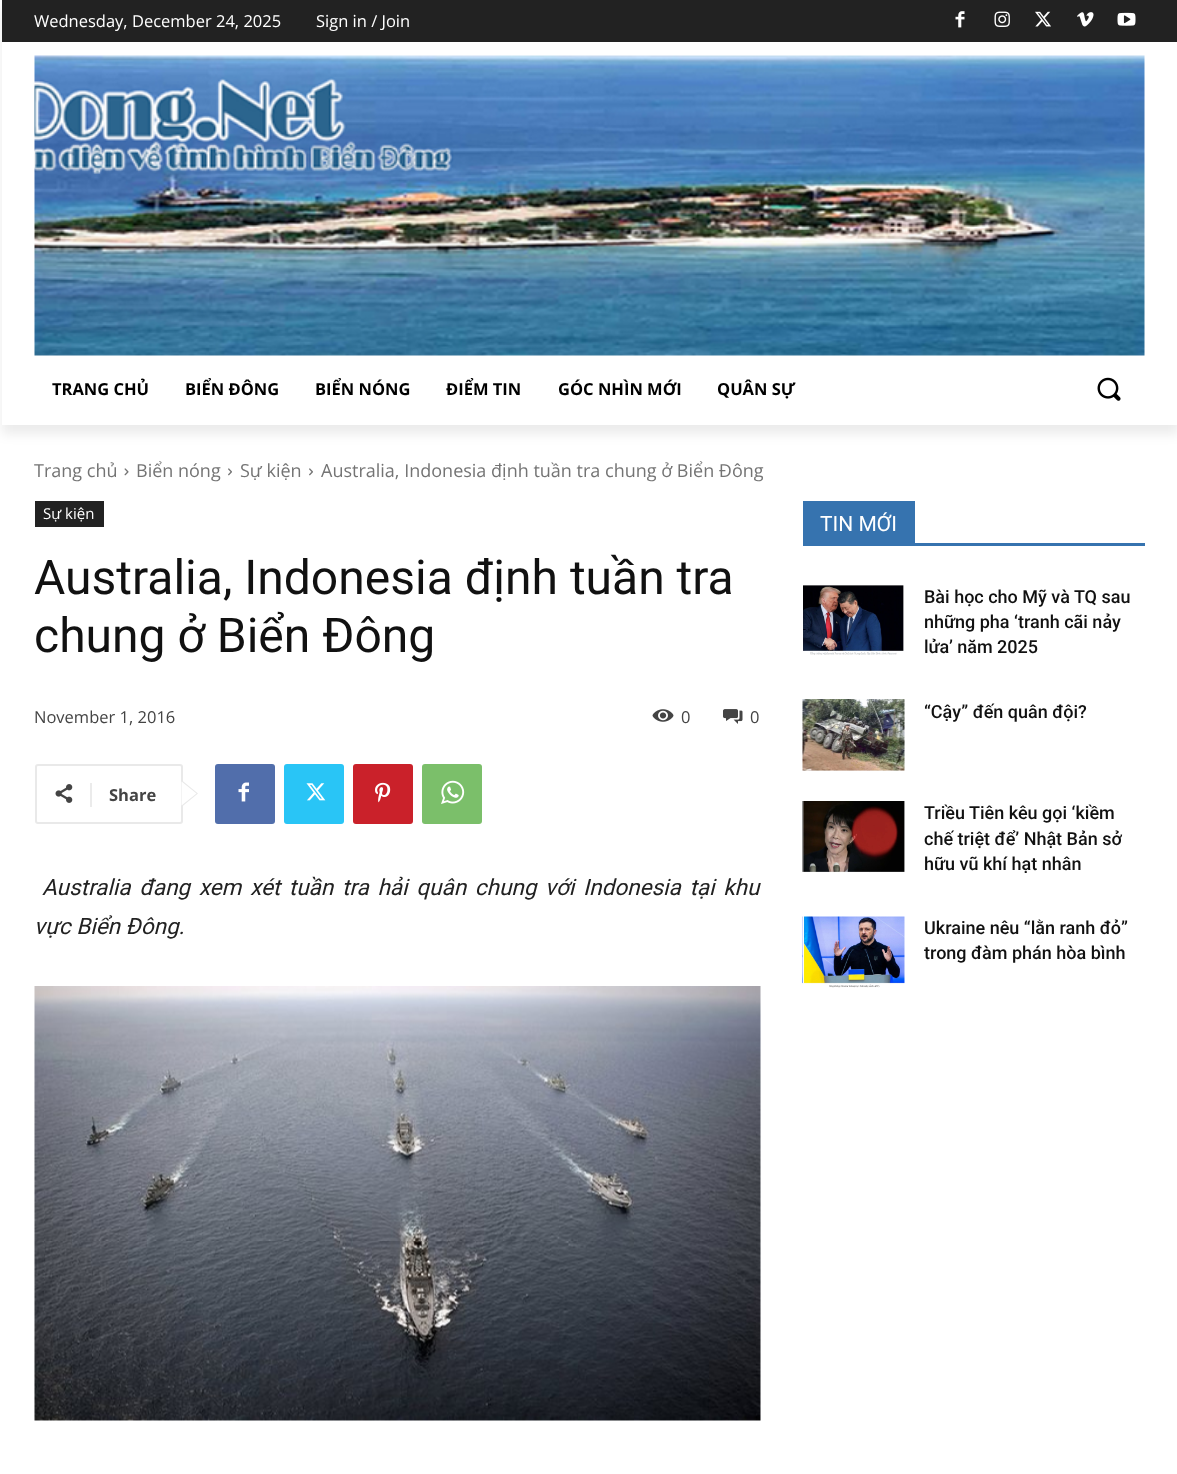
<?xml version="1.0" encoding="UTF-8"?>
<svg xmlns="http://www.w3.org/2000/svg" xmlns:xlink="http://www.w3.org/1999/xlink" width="1177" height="1474">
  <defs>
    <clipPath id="clip1"><path d="M 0 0 h 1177 v 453 h -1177 z m 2 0 h 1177 v 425 h -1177 z" clip-rule="evenodd" /></clipPath>
  </defs>
  <rect width="100%" height="100%" fill="#ffffff" />
  <rect x="2" width="1175" height="42" fill="#222222" />
  <image x="955" y="11" width="10" height="17" xlink:href="image1.png" />
  <image x="994" y="11" width="16" height="16" xlink:href="image2.png" />
  <image x="1035" y="11" width="16" height="16" xlink:href="image3.png" />
  <image x="1077" y="12" width="17" height="15" xlink:href="image4.png" />
  <image x="1117" y="12" width="19" height="14" xlink:href="image5.png" />
  <image x="34" y="55" width="1111" height="301" xlink:href="image6.png" />
  <g clip-path="url(#clip1)">
    <rect x="2" y="9" width="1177" height="425" fill="#000000" fill-opacity="0.08" filter="blur(6px)" />
  </g>
  <image x="1097" y="377" width="24" height="24" xlink:href="image7.png" />
  <image x="124" y="468" width="5" height="8" xlink:href="image8.png" />
  <image x="228" y="468" width="4" height="8" xlink:href="image9.png" />
  <image x="309" y="468" width="4" height="8" xlink:href="image9.png" />
  <rect x="35" y="501" width="69" height="26" fill="#222222" />
  <image x="652" y="709" width="22" height="13" xlink:href="image10.png" />
  <image x="723" y="709" width="20" height="15" xlink:href="image11.png" />
  <rect x="36" y="765" width="146" height="58" rx="2" fill="none" stroke="#e9e9e9" stroke-width="2" />
  <path d="M 181.5 807 v -27 l 16.5 13.5 z" fill="#e9e9e9" />
  <image x="55" y="784" width="18" height="19" xlink:href="image12.png" />
  <rect x="90" y="783" width="2" height="24" fill="#ebebeb" />
  <path d="M 181.5 805.5 v -24 l 15 12 z" fill="#ffffff" />
  <rect x="215" y="764" width="60" height="60" rx="3" fill="#516eab" />
  <image x="238" y="782" width="11" height="20" xlink:href="image13.png" />
  <rect x="284" y="764" width="60" height="60" rx="3" fill="#29c5f6" />
  <image x="306" y="783" width="20" height="18" xlink:href="image14.png" />
  <rect x="353" y="764" width="60" height="60" rx="3" fill="#ca212a" />
  <image x="375" y="782" width="16" height="21" xlink:href="image15.png" />
  <rect x="422" y="764" width="60" height="60" rx="3" fill="#7bbf6a" />
  <image x="441" y="780" width="24" height="24" xlink:href="image16.png" />
  <image x="34" y="986" width="727" height="435" xlink:href="image17.png" />
  <rect x="803" y="543" width="342" height="3" fill="#3673af" />
  <rect x="803" y="501" width="112" height="42" fill="#3673af" />
  <image x="803" y="585" width="101" height="70" xlink:href="image18.png" />
  <image x="802" y="699" width="103" height="72" xlink:href="image19.png" />
  <image x="802" y="801" width="103" height="72" xlink:href="image20.png" />
  <image x="802" y="916" width="103" height="72" xlink:href="image21.png" />
  <text x="34" y="27" style="font-family: Open Sans; font-size: 16.5px; fill: #ffffff">Wednesday, December 24, 2025</text>
  <text x="316" y="27" style="font-family: Open Sans; font-size: 16.5px; fill: #ffffff">Sign in / Join</text>
  <text x="52" y="395" style="font-family: Open Sans; font-size: 16.5px; font-weight: bold; fill: #000000">TRANG CHỦ</text>
  <text x="185" y="395" style="font-family: Open Sans; font-size: 16.5px; font-weight: bold; fill: #000000">BIỂN ĐÔNG</text>
  <text x="315" y="395" style="font-family: Open Sans; font-size: 16.5px; font-weight: bold; fill: #000000">BIỂN NÓNG</text>
  <text x="446" y="395" style="font-family: Open Sans; font-size: 16.5px; font-weight: bold; fill: #000000">ĐIỂM TIN</text>
  <text x="558" y="395" style="font-family: Open Sans; font-size: 16.5px; font-weight: bold; fill: #000000">GÓC NHÌN MỚI</text>
  <text x="717" y="395" style="font-family: Open Sans; font-size: 16.5px; font-weight: bold; fill: #000000">QUÂN SỰ</text>
  <text x="34" y="477" style="font-family: Open Sans; font-size: 18px; fill: #747474">Trang chủ</text>
  <text x="136" y="477" style="font-family: Open Sans; font-size: 18px; fill: #747474">Biển nóng</text>
  <text x="240" y="477" style="font-family: Open Sans; font-size: 18px; fill: #747474">Sự kiện</text>
  <text x="321" y="477" style="font-family: Open Sans; font-size: 18px; fill: #747474">Australia, Indonesia định tuần tra chung ở Biển Đông</text>
  <text x="43" y="519" style="font-family: Open Sans; font-size: 15px; fill: #ffffff">Sự kiện</text>
  <text x="34" y="594" style="font-family: Roboto; font-size: 48px; fill: #111111">Australia, Indonesia định tuần tra</text>
  <text x="34" y="652" style="font-family: Roboto; font-size: 48px; fill: #111111">chung ở Biển Đông</text>
  <text x="34" y="723" style="font-family: Open Sans; font-size: 16.5px; fill: #444444">November 1, 2016</text>
  <text x="681" y="723" style="font-family: Open Sans; font-size: 16.5px; fill: #444444">0</text>
  <text x="750" y="723" style="font-family: Open Sans; font-size: 16.5px; fill: #444444">0</text>
  <text x="109" y="801" style="font-family: Open Sans; font-size: 16.5px; font-weight: bold; fill: #444444">Share</text>
  <text x="42" y="895" word-spacing="3.1" style="font-family: Roboto; font-size: 22.5px; font-style: italic; fill: #222222">Australia đang xem xét tuần tra hải quân chung với Indonesia tại khu</text>
  <text x="34" y="934" style="font-family: Roboto; font-size: 22.5px; font-style: italic; fill: #222222">vực Biển Đông.</text>
  <text x="820" y="531" style="font-family: Roboto; font-size: 21px; fill: #ffffff">TIN MỚI</text>
  <text x="924" y="603" style="font-family: Roboto; font-size: 18px; font-weight: 500; fill: #111111">Bài học cho Mỹ và TQ sau</text>
  <text x="924" y="628" style="font-family: Roboto; font-size: 18px; font-weight: 500; fill: #111111">những pha ‘tranh cãi nảy</text>
  <text x="924" y="653" style="font-family: Roboto; font-size: 18px; font-weight: 500; fill: #111111">lửa’ năm 2025</text>
  <text x="924" y="718" style="font-family: Roboto; font-size: 18px; font-weight: 500; fill: #111111">“Cậy” đến quân đội?</text>
  <text x="924" y="819" style="font-family: Roboto; font-size: 18px; font-weight: 500; fill: #111111">Triều Tiên kêu gọi ‘kiềm</text>
  <text x="924" y="845" style="font-family: Roboto; font-size: 18px; font-weight: 500; fill: #111111">chế triệt để’ Nhật Bản sở</text>
  <text x="924" y="870" style="font-family: Roboto; font-size: 18px; font-weight: 500; fill: #111111">hữu vũ khí hạt nhân</text>
  <text x="924" y="934" style="font-family: Roboto; font-size: 18px; font-weight: 500; fill: #111111">Ukraine nêu “lằn ranh đỏ”</text>
  <text x="924" y="959" style="font-family: Roboto; font-size: 18px; font-weight: 500; fill: #111111">trong đàm phán hòa bình</text>
</svg>
